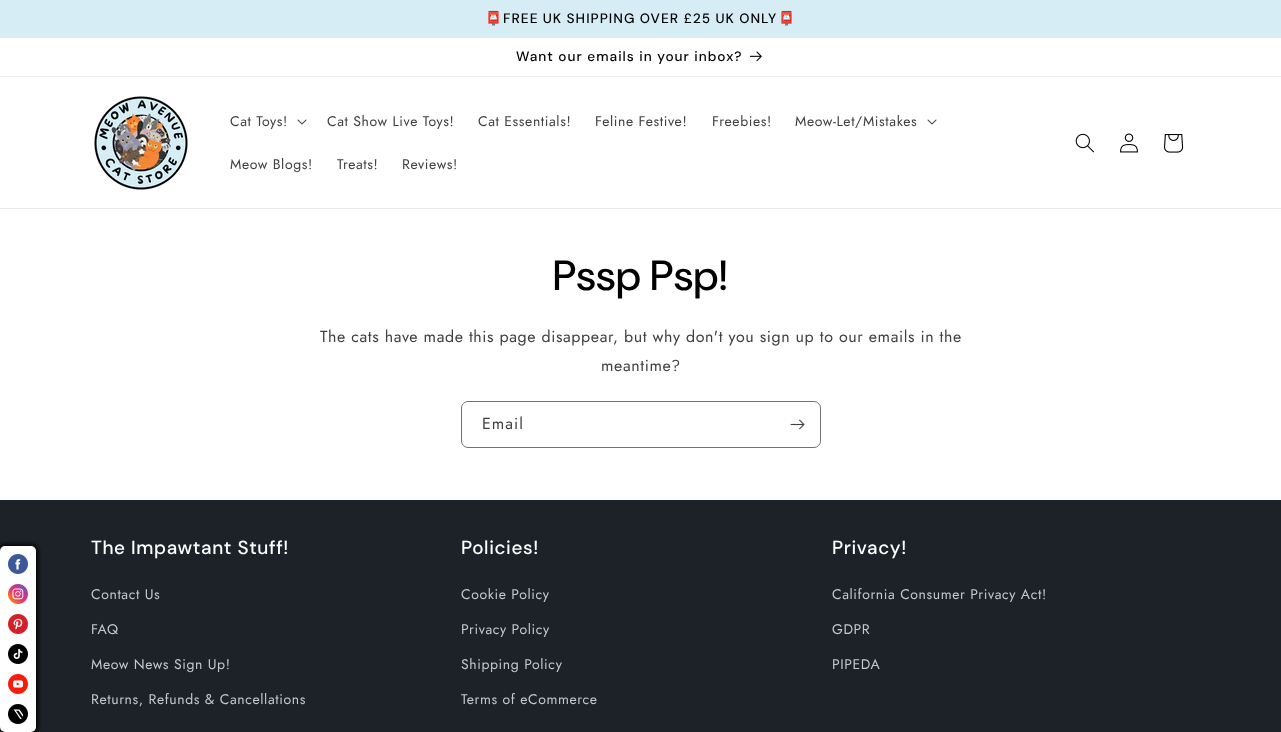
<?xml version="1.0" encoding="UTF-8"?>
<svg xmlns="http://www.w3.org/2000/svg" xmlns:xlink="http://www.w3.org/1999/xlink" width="1281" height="732">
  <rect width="100%" height="100%" fill="#1c2228" />
  <rect width="1281" height="38" fill="#d6edf5" />
  <rect y="38" width="1281" height="38" fill="#ffffff" />
  <rect y="76" width="1281" height="1" fill="#ebebeb" />
  <image x="750" y="51" width="12" height="11" xlink:href="image1.png" />
  <rect y="77" width="1281" height="131" fill="#ffffff" />
  <rect y="208" width="1281" height="1" fill="#ebebeb" />
  <image x="94" y="96" width="94" height="94" xlink:href="image2.png" />
  <image x="297" y="119" width="10" height="6" xlink:href="image3.png" />
  <image x="927" y="119" width="10" height="6" xlink:href="image3.png" />
  <image x="1075" y="133" width="19" height="20" xlink:href="image4.png" />
  <image x="1120" y="133" width="18" height="20" xlink:href="image5.png" />
  <image x="1164" y="134" width="20" height="19" xlink:href="image6.png" />
  <rect y="209" width="1281" height="291" fill="#ffffff" />
  <rect x="461.5" y="401.5" width="359" height="46" rx="6.5" fill="none" stroke="#737373" />
  <image x="790" y="419" width="15" height="11" xlink:href="image7.png" />
  <rect x="-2" y="544" width="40" height="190" rx="7" fill="#030303" filter="blur(2px)" />
  <rect y="546" width="36" height="186" rx="5" fill="#ffffff" />
  <image x="8" y="554" width="20" height="20" xlink:href="image8.png" />
  <image x="8" y="584" width="20" height="20" xlink:href="image9.png" />
  <image x="8" y="614" width="20" height="20" xlink:href="image10.png" />
  <image x="8" y="644" width="20" height="20" xlink:href="image11.png" />
  <image x="8" y="674" width="20" height="20" xlink:href="image12.png" />
  <image x="8" y="704" width="20" height="20" xlink:href="image13.png" />
  <text x="485" y="23" style="font-family: Noto Color Emoji; font-size: 13.65px; letter-spacing: 1px; fill: #000000">📮</text>
  <text x="503" y="23" word-spacing="-0.25" style="font-family: 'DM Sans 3'; font-size: 13.65px; font-weight: 500; letter-spacing: 1px; fill: #000000">FREE UK SHIPPING OVER £25 UK ONLY</text>
  <text x="778" y="23" style="font-family: Noto Color Emoji; font-size: 13.65px; letter-spacing: 1px; fill: #000000">📮</text>
  <text x="516" y="61" style="font-family: 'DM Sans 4'; font-size: 13.65px; font-weight: 500; letter-spacing: 1px; fill: #000000">Want our emails in your inbox?</text>
  <text x="230" y="126" style="font-family: Jost; font-size: 14px; letter-spacing: 0.6px; fill: #404040">Cat Toys!</text>
  <text x="327" y="126" style="font-family: Jost; font-size: 14px; letter-spacing: 0.6px; fill: #404040">Cat Show Live Toys!</text>
  <text x="478" y="126" style="font-family: Jost; font-size: 14px; letter-spacing: 0.6px; fill: #404040">Cat Essentials!</text>
  <text x="595" y="126" style="font-family: Jost; font-size: 14px; letter-spacing: 0.6px; fill: #404040">Feline Festive!</text>
  <text x="712" y="126" style="font-family: Jost; font-size: 14px; letter-spacing: 0.6px; fill: #404040">Freebies!</text>
  <text x="795" y="126" style="font-family: Jost; font-size: 14px; letter-spacing: 0.6px; fill: #404040">Meow-Let/Mistakes</text>
  <text x="230" y="169" style="font-family: Jost; font-size: 14px; letter-spacing: 0.6px; fill: #404040">Meow Blogs!</text>
  <text x="337" y="169" style="font-family: Jost; font-size: 14px; letter-spacing: 0.6px; fill: #404040">Treats!</text>
  <text x="402" y="169" style="font-family: Jost; font-size: 14px; letter-spacing: 0.6px; fill: #404040">Reviews!</text>
  <text x="553" y="290" style="font-family: DM Sans; font-size: 42px; font-weight: 500; letter-spacing: 0.6px; fill: #000000">Pssp Psp!</text>
  <text x="320" y="342" style="font-family: Jost; font-size: 16px; letter-spacing: 0.6px; fill: #404040">The cats have made this page disappear, but why don't you sign up to our emails in the</text>
  <text x="601" y="371" style="font-family: Jost; font-size: 16px; letter-spacing: 0.6px; fill: #404040">meantime?</text>
  <text x="482" y="429" style="font-family: Jost; font-size: 16px; letter-spacing: 1px; fill: #404040">Email</text>
  <text x="91" y="554" style="font-family: 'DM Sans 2'; font-size: 18.9px; font-weight: 500; letter-spacing: 0.6px; fill: #ffffff">The Impawtant Stuff!</text>
  <text x="91" y="599" style="font-family: Jost; font-size: 14px; letter-spacing: 0.6px; fill: #c6c8c9">Contact Us</text>
  <text x="91" y="634" style="font-family: Jost; font-size: 14px; letter-spacing: 0.6px; fill: #c6c8c9">FAQ</text>
  <text x="91" y="669" style="font-family: Jost; font-size: 14px; letter-spacing: 0.6px; fill: #c6c8c9">Meow News Sign Up!</text>
  <text x="91" y="704" style="font-family: Jost; font-size: 14px; letter-spacing: 0.6px; fill: #c6c8c9">Returns, Refunds &amp; Cancellations</text>
  <text x="461" y="554" style="font-family: 'DM Sans 2'; font-size: 18.9px; font-weight: 500; letter-spacing: 0.6px; fill: #ffffff">Policies!</text>
  <text x="461" y="599" style="font-family: Jost; font-size: 14px; letter-spacing: 0.6px; fill: #c6c8c9">Cookie Policy</text>
  <text x="461" y="634" style="font-family: Jost; font-size: 14px; letter-spacing: 0.6px; fill: #c6c8c9">Privacy Policy</text>
  <text x="461" y="669" style="font-family: Jost; font-size: 14px; letter-spacing: 0.6px; fill: #c6c8c9">Shipping Policy</text>
  <text x="461" y="704" style="font-family: Jost; font-size: 14px; letter-spacing: 0.6px; fill: #c6c8c9">Terms of eCommerce</text>
  <text x="832" y="554" style="font-family: 'DM Sans 2'; font-size: 18.9px; font-weight: 500; letter-spacing: 0.6px; fill: #ffffff">Privacy!</text>
  <text x="832" y="599" style="font-family: Jost; font-size: 14px; letter-spacing: 0.6px; fill: #c6c8c9">California Consumer Privacy Act!</text>
  <text x="832" y="634" style="font-family: Jost; font-size: 14px; letter-spacing: 0.6px; fill: #c6c8c9">GDPR</text>
  <text x="832" y="669" style="font-family: Jost; font-size: 14px; letter-spacing: 0.6px; fill: #c6c8c9">PIPEDA</text>
</svg>
